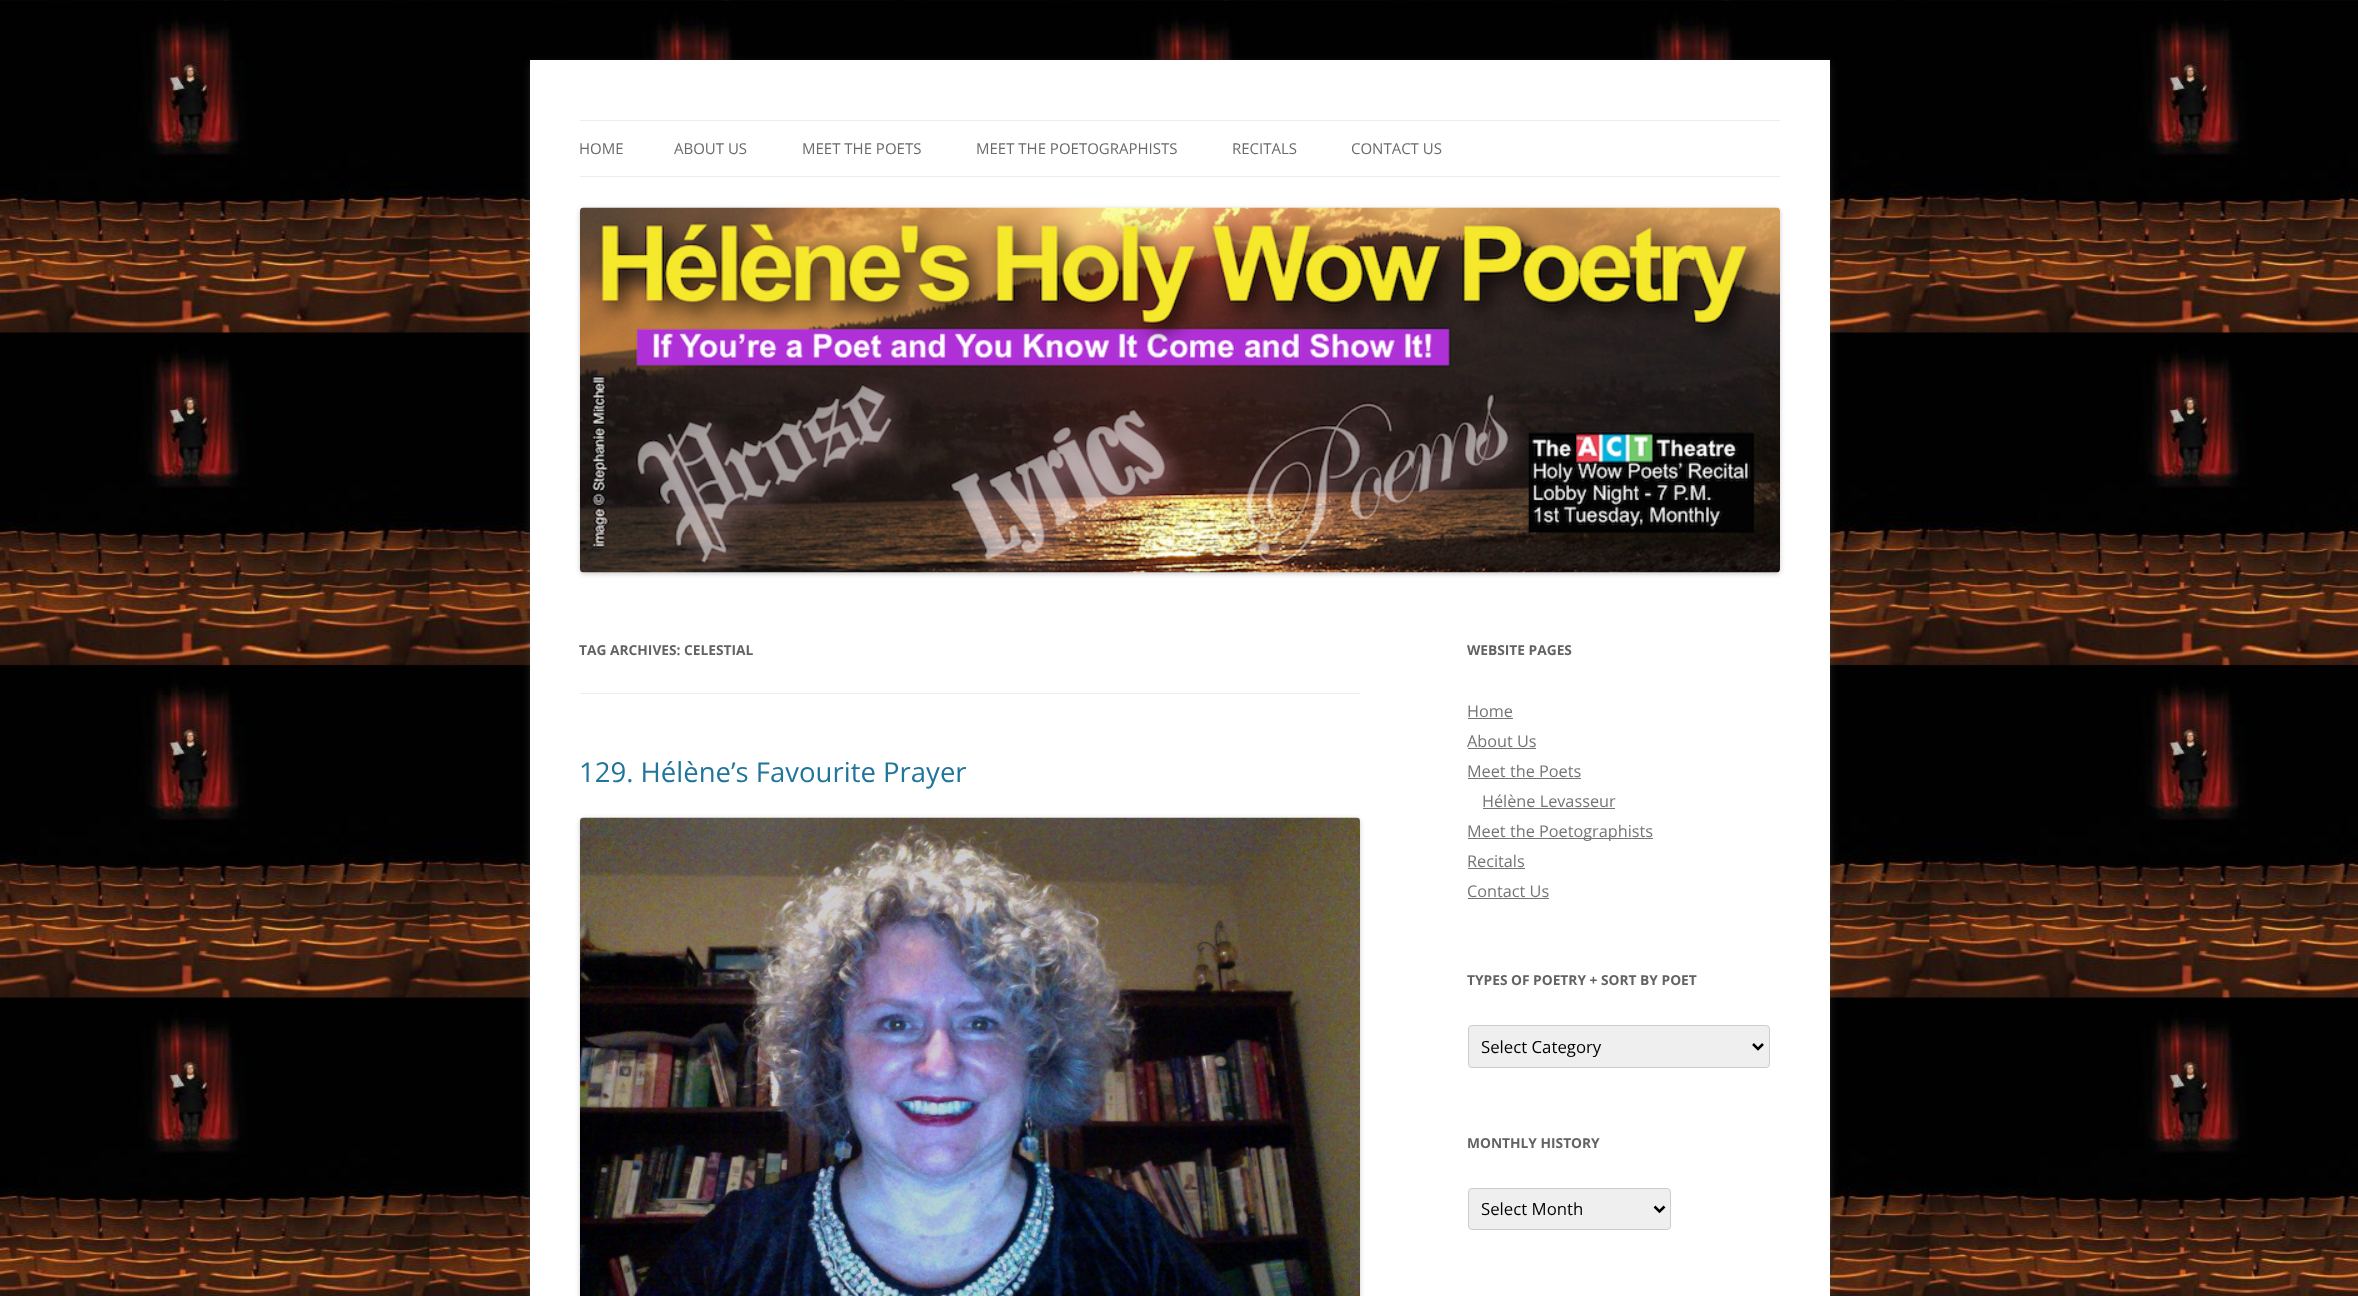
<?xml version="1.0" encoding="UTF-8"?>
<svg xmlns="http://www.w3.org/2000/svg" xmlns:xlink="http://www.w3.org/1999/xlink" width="2358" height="1296">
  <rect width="100%" height="100%" fill="#ffffff" />
  <image x="0" y="0" width="2358" height="1296" xlink:href="image1.png" />
  <rect x="530" y="63" width="1300" height="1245" fill="#646464" fill-opacity="0.3" filter="blur(4px)" />
  <rect x="530" y="60" width="1300" height="1236" fill="#ffffff" />
  <rect x="580" y="120" width="1200" height="1" fill="#ededed" />
  <rect x="580" y="176" width="1200" height="1" fill="#ededed" />
  <rect x="580" y="209" width="1200" height="365" rx="4" fill="#000000" fill-opacity="0.2" filter="blur(2.5px)" />
  <image x="580" y="207" width="1200" height="366" xlink:href="image2.png" />
  <rect x="580" y="693" width="780" height="1" fill="#ededed" />
  <rect x="580" y="819" width="780" height="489" rx="4" fill="#000000" fill-opacity="0.2" filter="blur(2.5px)" />
  <image x="580" y="817" width="780" height="479" xlink:href="image3.png" />
  <rect x="1468" y="718" width="45" height="1" fill="#757575" />
  <rect x="1468" y="748" width="68" height="1" fill="#757575" />
  <rect x="1468" y="778" width="113" height="1" fill="#757575" />
  <rect x="1483" y="808" width="132" height="1" fill="#757575" />
  <rect x="1468" y="838" width="185" height="1" fill="#757575" />
  <rect x="1468" y="868" width="57" height="1" fill="#757575" />
  <rect x="1468" y="898" width="81" height="1" fill="#757575" />
  <rect x="1468.5" y="1025.5" width="301" height="42" rx="3.5" fill="#efefef" stroke="#cccccc" />
  <path d="M 1753 1044 l 5 5 l 5 -5" fill="none" stroke="#000000" stroke-width="2.5" />
  <rect x="1468.5" y="1188.5" width="202" height="41" rx="3.5" fill="#efefef" stroke="#cccccc" />
  <path d="M 1654.5 1206.5 l 5 5 l 5 -5" fill="none" stroke="#000000" stroke-width="2.5" />
  <text x="579" y="154" style="font-family: Open Sans; font-size: 15px; fill: #6a6a6a">HOME</text>
  <text x="674" y="154" style="font-family: Open Sans; font-size: 15px; fill: #6a6a6a">ABOUT US</text>
  <text x="802" y="154" style="font-family: Open Sans; font-size: 15px; fill: #6a6a6a">MEET THE POETS</text>
  <text x="976" y="154" style="font-family: Open Sans; font-size: 15px; fill: #6a6a6a">MEET THE POETOGRAPHISTS</text>
  <text x="1232" y="154" style="font-family: Open Sans; font-size: 15px; fill: #6a6a6a">RECITALS</text>
  <text x="1351" y="154" style="font-family: Open Sans; font-size: 15px; fill: #6a6a6a">CONTACT US</text>
  <text x="579" y="655" style="font-family: Open Sans; font-size: 13.75px; font-weight: bold; fill: #636363">TAG ARCHIVES: CELESTIAL</text>
  <text x="579" y="782" style="font-family: Open Sans; font-size: 27.5px; fill: #21759b">129. Hélène’s Favourite Prayer</text>
  <text x="1467" y="655" style="font-family: Open Sans; font-size: 13.75px; font-weight: bold; fill: #636363">WEBSITE PAGES</text>
  <text x="1467" y="717" style="font-family: Open Sans; font-size: 16.25px; fill: #757575">Home</text>
  <text x="1467" y="747" style="font-family: Open Sans; font-size: 16.25px; fill: #757575">About Us</text>
  <text x="1467" y="777" style="font-family: Open Sans; font-size: 16.25px; fill: #757575">Meet the Poets</text>
  <text x="1482" y="807" style="font-family: Open Sans; font-size: 16.25px; fill: #757575">Hélène Levasseur</text>
  <text x="1467" y="837" style="font-family: Open Sans; font-size: 16.25px; fill: #757575">Meet the Poetographists</text>
  <text x="1467" y="867" style="font-family: Open Sans; font-size: 16.25px; fill: #757575">Recitals</text>
  <text x="1467" y="897" style="font-family: Open Sans; font-size: 16.25px; fill: #757575">Contact Us</text>
  <text x="1467" y="985" style="font-family: Open Sans; font-size: 13.75px; font-weight: bold; fill: #636363">TYPES OF POETRY + SORT BY POET</text>
  <text x="1481" y="1053" style="font-family: Open Sans; font-size: 16.75px; fill: #000000">Select Category</text>
  <text x="1467" y="1148" style="font-family: Open Sans; font-size: 13.75px; font-weight: bold; fill: #636363">MONTHLY HISTORY</text>
  <text x="1481" y="1215" style="font-family: Open Sans; font-size: 16.75px; fill: #000000">Select Month</text>
</svg>
